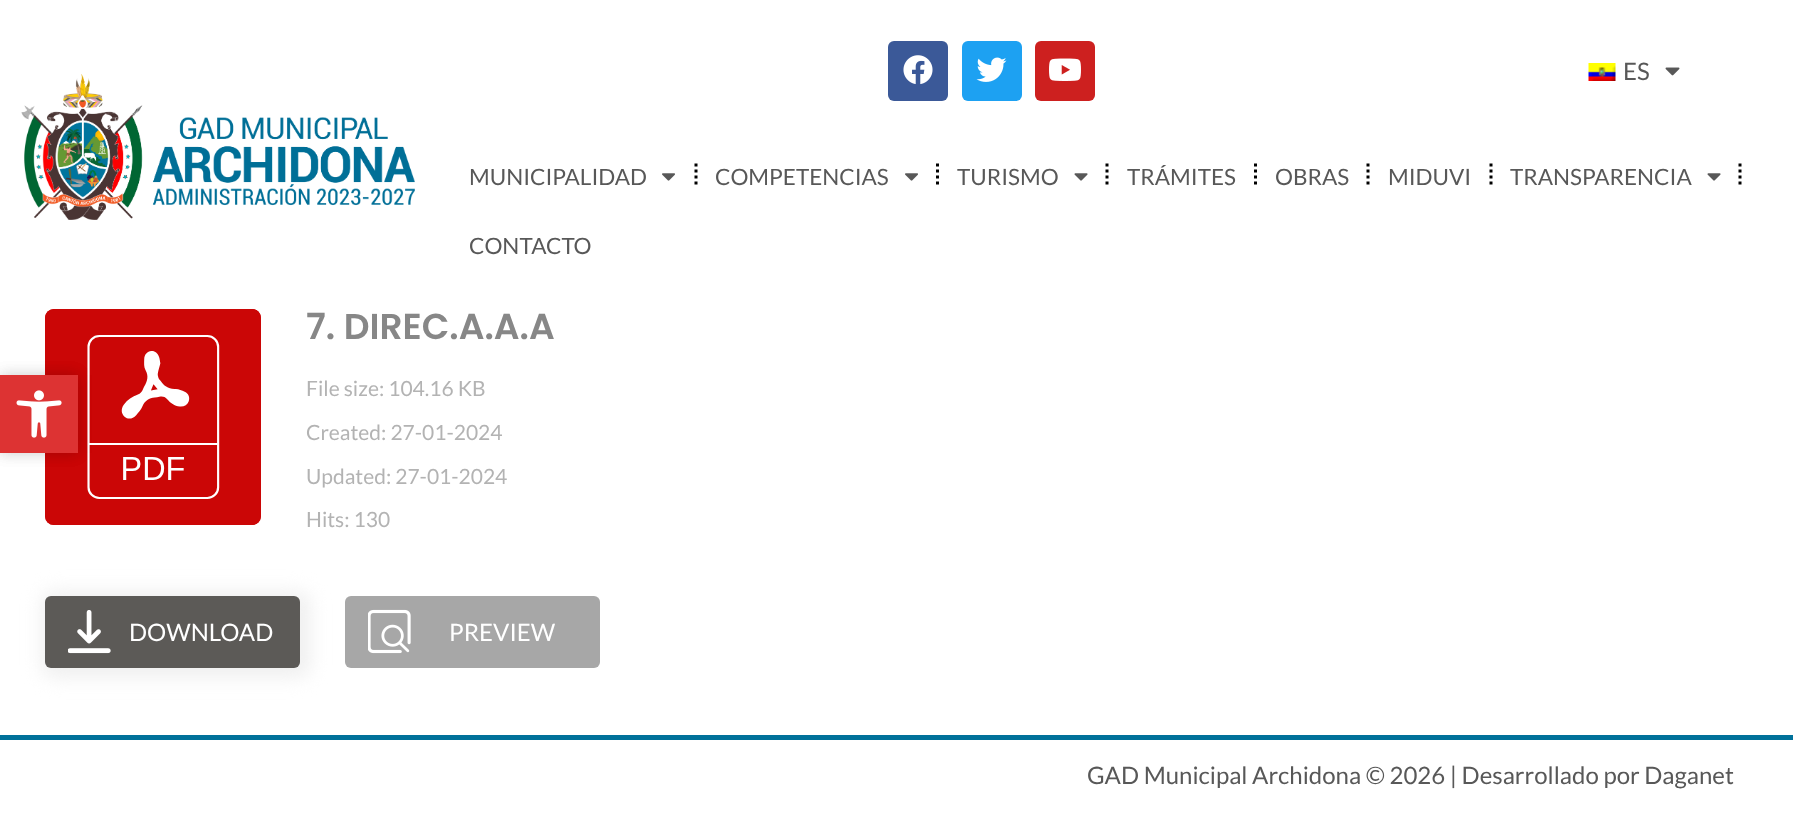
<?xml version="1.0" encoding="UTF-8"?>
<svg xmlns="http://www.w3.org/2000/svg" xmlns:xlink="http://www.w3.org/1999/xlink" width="1793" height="817">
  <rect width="100%" height="100%" fill="#ffffff" />
  <rect x="45" y="309" width="216" height="216" rx="9" fill="#cb0606" />
  <image x="45" y="309" width="216" height="216" xlink:href="image9.png" />
  <rect y="375" width="78" height="78" fill="#000000" fill-opacity="0.1" filter="blur(7.5px)" />
  <image x="21" y="74" width="394" height="146" xlink:href="image1.png" />
  <rect x="888" y="41" width="60" height="60" rx="6" fill="#3b5998" />
  <image x="903" y="55" width="30" height="30" xlink:href="image2.png" />
  <rect x="962" y="41" width="60" height="60" rx="6" fill="#1da1f2" />
  <image x="976" y="57" width="31" height="25" xlink:href="image3.png" />
  <rect x="1035" y="41" width="60" height="60" rx="6" fill="#cd201f" />
  <image x="1049" y="58" width="32" height="23" xlink:href="image4.png" />
  <image x="1588" y="63" width="28" height="18" xlink:href="image5.png" />
  <image x="1665" y="67" width="15" height="9" xlink:href="image6.png" />
  <image x="662" y="173" width="13" height="8" xlink:href="image7.png" />
  <path d="M 696 163.5 v 24" fill="none" stroke="#000000" stroke-width="3" stroke-dasharray="3 3" />
  <image x="905" y="173" width="13" height="8" xlink:href="image7.png" />
  <path d="M 937.5 163.5 v 24" fill="none" stroke="#000000" stroke-width="3" stroke-dasharray="3 3" />
  <image x="1074" y="173" width="14" height="8" xlink:href="image8.png" />
  <path d="M 1107 163.5 v 24" fill="none" stroke="#000000" stroke-width="3" stroke-dasharray="3 3" />
  <path d="M 1255.5 163.5 v 24" fill="none" stroke="#000000" stroke-width="3" stroke-dasharray="3 3" />
  <path d="M 1368 163.5 v 24" fill="none" stroke="#000000" stroke-width="3" stroke-dasharray="3 3" />
  <path d="M 1491 163.5 v 24" fill="none" stroke="#000000" stroke-width="3" stroke-dasharray="3 3" />
  <image x="1707" y="173" width="14" height="8" xlink:href="image8.png" />
  <path d="M 1740 163.5 v 24" fill="none" stroke="#000000" stroke-width="3" stroke-dasharray="3 3" />
  <rect x="41" y="591" width="270" height="87" rx="14" fill="#f0f0f0" filter="blur(9px)" />
  <rect x="45" y="596" width="255" height="72" rx="6" fill="#5c5a57" />
  <image x="68" y="610" width="43" height="44" xlink:href="image10.png" />
  <rect x="345" y="596" width="255" height="72" rx="6" fill="#a7a7a7" />
  <image x="368" y="609" width="43" height="45" xlink:href="image11.png" />
  <rect y="735" width="1793" height="5" fill="#00719a" />
  <rect y="375" width="78" height="78" fill="#000000" fill-opacity="0.1" filter="blur(7.5px)" />
  <rect y="375" width="78" height="78" fill="#dd3333" />
  <image x="16" y="390" width="46" height="48" xlink:href="image12.png" />
  <text x="1623" y="80" style="font-family: Lato; font-size: 24px; fill: #585858">ES</text>
  <text x="469" y="185" style="font-family: Lato; font-size: 22.5px; fill: #585858">MUNICIPALIDAD</text>
  <text x="715" y="185" style="font-family: Lato; font-size: 22.5px; fill: #585858">COMPETENCIAS</text>
  <text x="957" y="185" style="font-family: Lato; font-size: 22.5px; fill: #585858">TURISMO</text>
  <text x="1127" y="185" style="font-family: Lato; font-size: 22.5px; fill: #585858">TRÁMITES</text>
  <text x="1275" y="185" style="font-family: Lato; font-size: 22.5px; fill: #585858">OBRAS</text>
  <text x="1388" y="185" style="font-family: Lato; font-size: 22.5px; fill: #585858">MIDUVI</text>
  <text x="1510" y="185" style="font-family: Lato; font-size: 22.5px; fill: #585858">TRANSPARENCIA</text>
  <text x="469" y="254" style="font-family: Lato; font-size: 22.5px; fill: #585858">CONTACTO</text>
  <text x="306" y="339" style="font-family: Poppins; font-size: 36px; font-weight: 600; fill: #878787">7. DIREC.A.A.A</text>
  <text x="306" y="396" style="font-family: Lato; font-size: 21px; fill: #b3b3b3">File size: 104.16 KB</text>
  <text x="306" y="440" style="font-family: Lato; font-size: 21px; fill: #b3b3b3">Created: 27-01-2024</text>
  <text x="306" y="484" style="font-family: Lato; font-size: 21px; fill: #b3b3b3">Updated: 27-01-2024</text>
  <text x="306" y="527" style="font-family: Lato; font-size: 21px; fill: #b3b3b3">Hits: 130</text>
  <text x="129" y="641" style="font-family: Lato; font-size: 24px; fill: #ffffff">DOWNLOAD</text>
  <text x="449" y="641" style="font-family: Lato; font-size: 24px; fill: #ffffff">PREVIEW</text>
  <text x="1087" y="784" style="font-family: Lato; font-size: 24px; fill: #585858">GAD Municipal Archidona © 2026 | Desarrollado por Daganet</text>
</svg>
